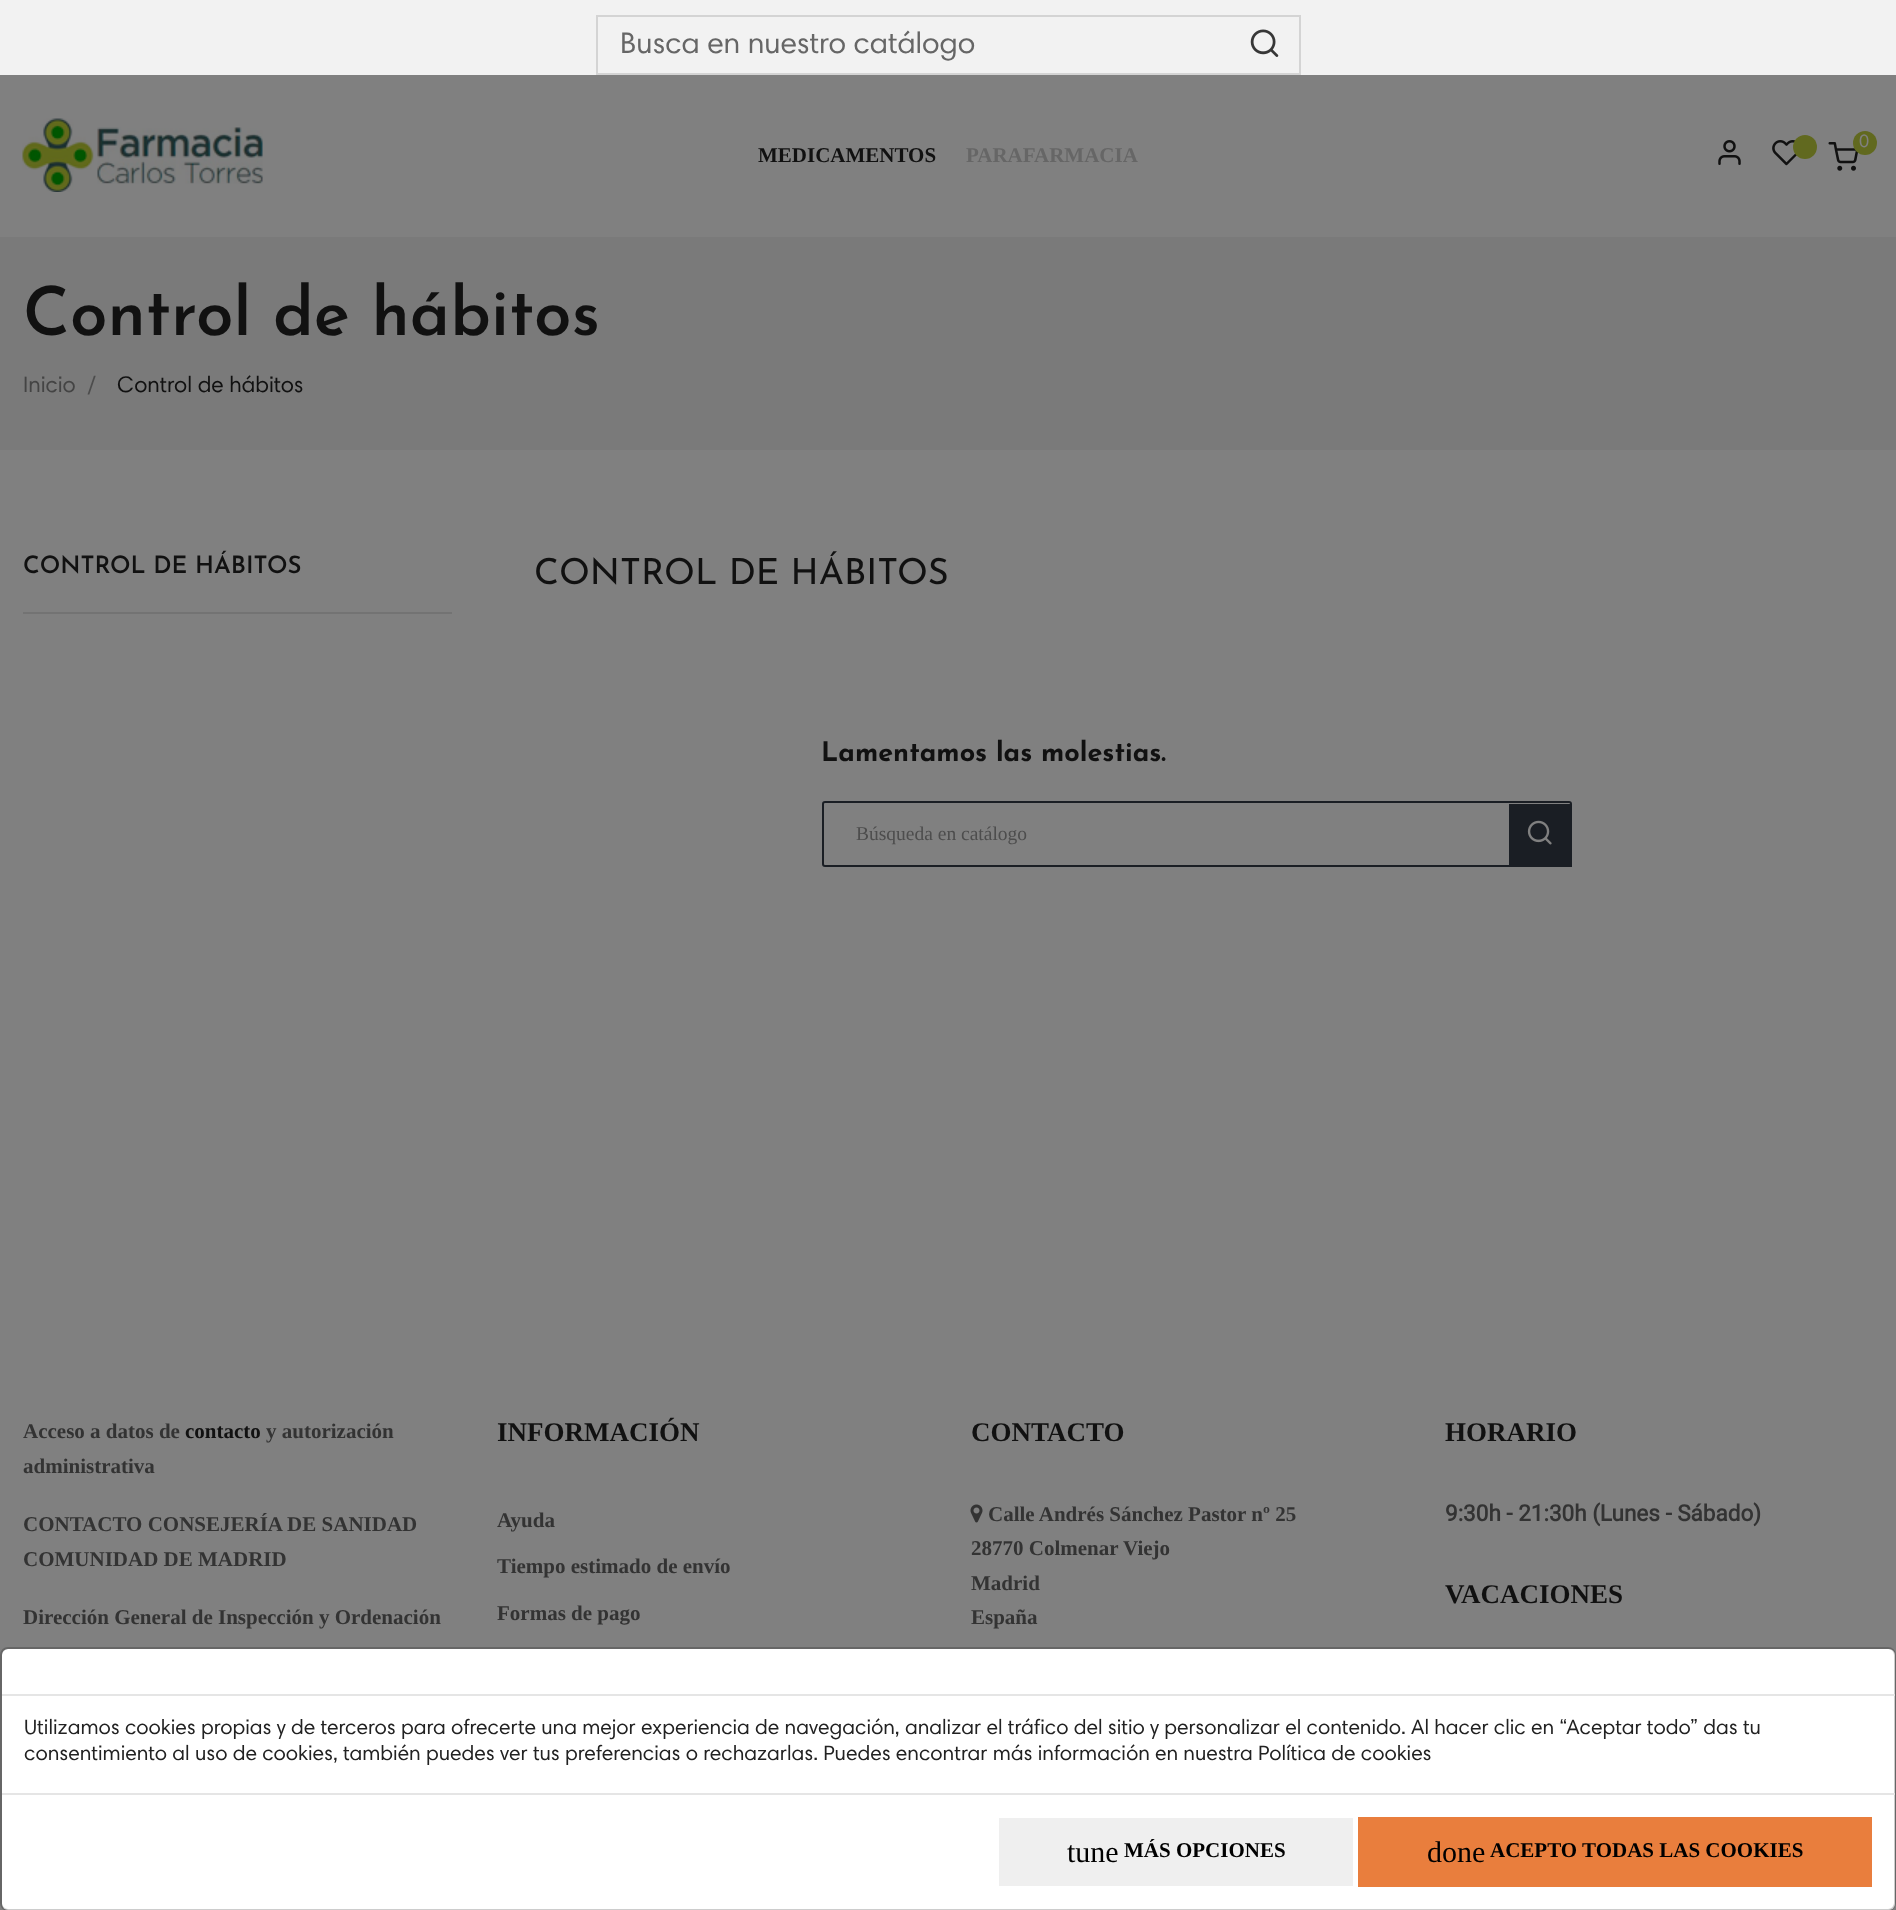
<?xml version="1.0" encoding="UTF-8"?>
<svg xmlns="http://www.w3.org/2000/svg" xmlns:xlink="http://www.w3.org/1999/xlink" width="1896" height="1910">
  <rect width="100%" height="100%" fill="#808080" />
  <rect width="1896" height="75" fill="#f2f2f2" />
  <rect x="597" y="16" width="703" height="58" fill="none" stroke="#d4d4d4" stroke-width="2" />
  <image x="1250" y="29" width="29" height="28" xlink:href="image1.png" />
  <image x="22" y="118" width="241" height="74" xlink:href="image2.png" />
  <image x="1718" y="140" width="23" height="25" xlink:href="image3.png" />
  <image x="1772" y="140" width="25" height="26" xlink:href="image4.png" />
  <circle cx="1805" cy="147" r="12" fill="#61691f" />
  <image x="1828" y="142" width="30" height="29" xlink:href="image5.png" />
  <circle cx="1865" cy="143" r="12" fill="#61691f" />
  <rect y="237" width="1896" height="213" fill="#7a7a7a" />
  <rect x="23" y="612" width="429" height="2" fill="#737373" />
  <rect x="823" y="802" width="748" height="64" rx="2" fill="none" stroke="#1a1e24" stroke-width="2" />
  <rect x="1509" y="804" width="63" height="63" fill="#1a1e24" />
  <image x="1527" y="820" width="25" height="25" xlink:href="image6.png" />
  <image x="970" y="1504" width="13" height="19" xlink:href="image7.png" />
  <rect x="2" y="1649" width="1893" height="261" rx="6" fill="#ffffff" />
  <rect x="1" y="1648" width="1894" height="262" rx="7" fill="none" stroke="#000000" stroke-opacity="0.2" stroke-width="2" />
  <rect x="2" y="1694" width="1893" height="2" fill="#e5e5e5" />
  <rect x="2" y="1793" width="1893" height="2" fill="#e5e5e5" />
  <rect x="999" y="1818" width="354" height="68" fill="#efefef" />
  <rect x="1358" y="1817" width="514" height="70" fill="#e97e3d" />
  <text x="620" y="53" style="font-family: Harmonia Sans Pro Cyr; font-size: 30px; fill: #666666">Busca en nuestro catálogo</text>
  <text x="1859" y="147" style="font-family: Harmonia Sans Pro Cyr; font-size: 18px; fill: #808080">0</text>
  <text x="758" y="162" style="font-family: Liberation Serif; font-size: 21px; font-weight: bold; fill: #111111">MEDICAMENTOS</text>
  <text x="966" y="162" style="font-family: Liberation Serif; font-size: 21px; font-weight: bold; fill: #666666">PARAFARMACIA</text>
  <text x="23" y="335" style="font-family: Josefin Sans; font-size: 67.5px; font-weight: 600; fill: #111111">Control de hábitos</text>
  <text x="23" y="392" style="font-family: Harmonia Sans Pro Cyr; font-size: 22.5px; fill: #444444">Inicio</text>
  <text x="88" y="392" style="font-family: Harmonia Sans Pro Cyr; font-size: 22.5px; fill: #4d4d4d">/</text>
  <text x="117" y="392" style="font-family: Harmonia Sans Pro Cyr; font-size: 22.5px; fill: #111111">Control de hábitos</text>
  <text x="23" y="573" style="font-family: Josefin Sans; font-size: 24px; font-weight: 600; fill: #111111">CONTROL DE HÁBITOS</text>
  <text x="534" y="584" style="font-family: Josefin Sans; font-size: 36px; fill: #111111">CONTROL DE HÁBITOS</text>
  <text x="821" y="761" style="font-family: Josefin Sans; font-size: 27px; font-weight: bold; fill: #111111">Lamentamos las molestias.</text>
  <text x="856" y="840" style="font-family: Liberation Serif; font-size: 19.5px; fill: #4d4d4d">Búsqueda en catálogo</text>
  <text x="23" y="1438" style="font-family: Liberation Serif; font-size: 21px; font-weight: bold; fill: #333333">Acceso a datos de</text>
  <text x="185" y="1438" style="font-family: Liberation Serif; font-size: 21px; font-weight: bold; fill: #111111">contacto</text>
  <text x="266" y="1438" style="font-family: Liberation Serif; font-size: 21px; font-weight: bold; fill: #333333">y autorización</text>
  <text x="23" y="1473" style="font-family: Liberation Serif; font-size: 21px; font-weight: bold; fill: #333333">administrativa</text>
  <text x="23" y="1531" style="font-family: Liberation Serif; font-size: 21px; font-weight: bold; fill: #333333">CONTACTO CONSEJERÍA DE SANIDAD</text>
  <text x="23" y="1566" style="font-family: Liberation Serif; font-size: 21px; font-weight: bold; fill: #333333">COMUNIDAD DE MADRID</text>
  <text x="23" y="1624" style="font-family: Liberation Serif; font-size: 21px; font-weight: bold; fill: #333333">Dirección General de Inspección y Ordenación</text>
  <text x="497" y="1441" style="font-family: Liberation Serif; font-size: 27px; font-weight: bold; fill: #111111">INFORMACIÓN</text>
  <text x="497" y="1527" style="font-family: Liberation Serif; font-size: 21px; font-weight: bold; fill: #333333">Ayuda</text>
  <text x="497" y="1573" style="font-family: Liberation Serif; font-size: 21px; font-weight: bold; fill: #333333">Tiempo estimado de envío</text>
  <text x="497" y="1620" style="font-family: Liberation Serif; font-size: 21px; font-weight: bold; fill: #333333">Formas de pago</text>
  <text x="971" y="1441" style="font-family: Liberation Serif; font-size: 27px; font-weight: bold; fill: #111111">CONTACTO</text>
  <text x="988" y="1521" style="font-family: Liberation Serif; font-size: 21px; font-weight: bold; fill: #333333">Calle Andrés Sánchez Pastor nº 25</text>
  <text x="971" y="1555" style="font-family: Liberation Serif; font-size: 21px; font-weight: bold; fill: #333333">28770 Colmenar Viejo</text>
  <text x="971" y="1590" style="font-family: Liberation Serif; font-size: 21px; font-weight: bold; fill: #333333">Madrid</text>
  <text x="971" y="1624" style="font-family: Liberation Serif; font-size: 21px; font-weight: bold; fill: #333333">España</text>
  <text x="1445" y="1441" style="font-family: Liberation Serif; font-size: 27px; font-weight: bold; fill: #111111">HORARIO</text>
  <text x="1445" y="1521" style="font-family: Roboto; font-size: 22.5px; font-weight: bold; fill: #333333">9:30h - 21:30h (Lunes - Sábado)</text>
  <text x="1445" y="1603" style="font-family: Liberation Serif; font-size: 27px; font-weight: bold; fill: #111111">VACACIONES</text>
  <text x="24" y="1734" style="font-family: Harmonia Sans Pro Cyr; font-size: 21px; fill: #222222">Utilizamos cookies propias y de terceros para ofrecerte una mejor experiencia de navegación, analizar el tráfico del sitio y personalizar el contenido. Al hacer clic en “Aceptar todo” das tu</text>
  <text x="24" y="1760" style="font-family: Harmonia Sans Pro Cyr; font-size: 21px; fill: #222222">consentimiento al uso de cookies, también puedes ver tus preferencias o rechazarlas. Puedes encontrar más información en nuestra Política de cookies</text>
  <text x="1067" y="1862" style="font-family: Liberation Serif; font-size: 30px; fill: #000000">tune</text>
  <text x="1124" y="1857" style="font-family: Liberation Serif; font-size: 21px; font-weight: bold; fill: #000000">MÁS OPCIONES</text>
  <text x="1427" y="1862" style="font-family: Liberation Serif; font-size: 30px; fill: #000000">done</text>
  <text x="1490" y="1857" style="font-family: Liberation Serif; font-size: 21px; font-weight: bold; fill: #000000">ACEPTO TODAS LAS COOKIES</text>
</svg>
